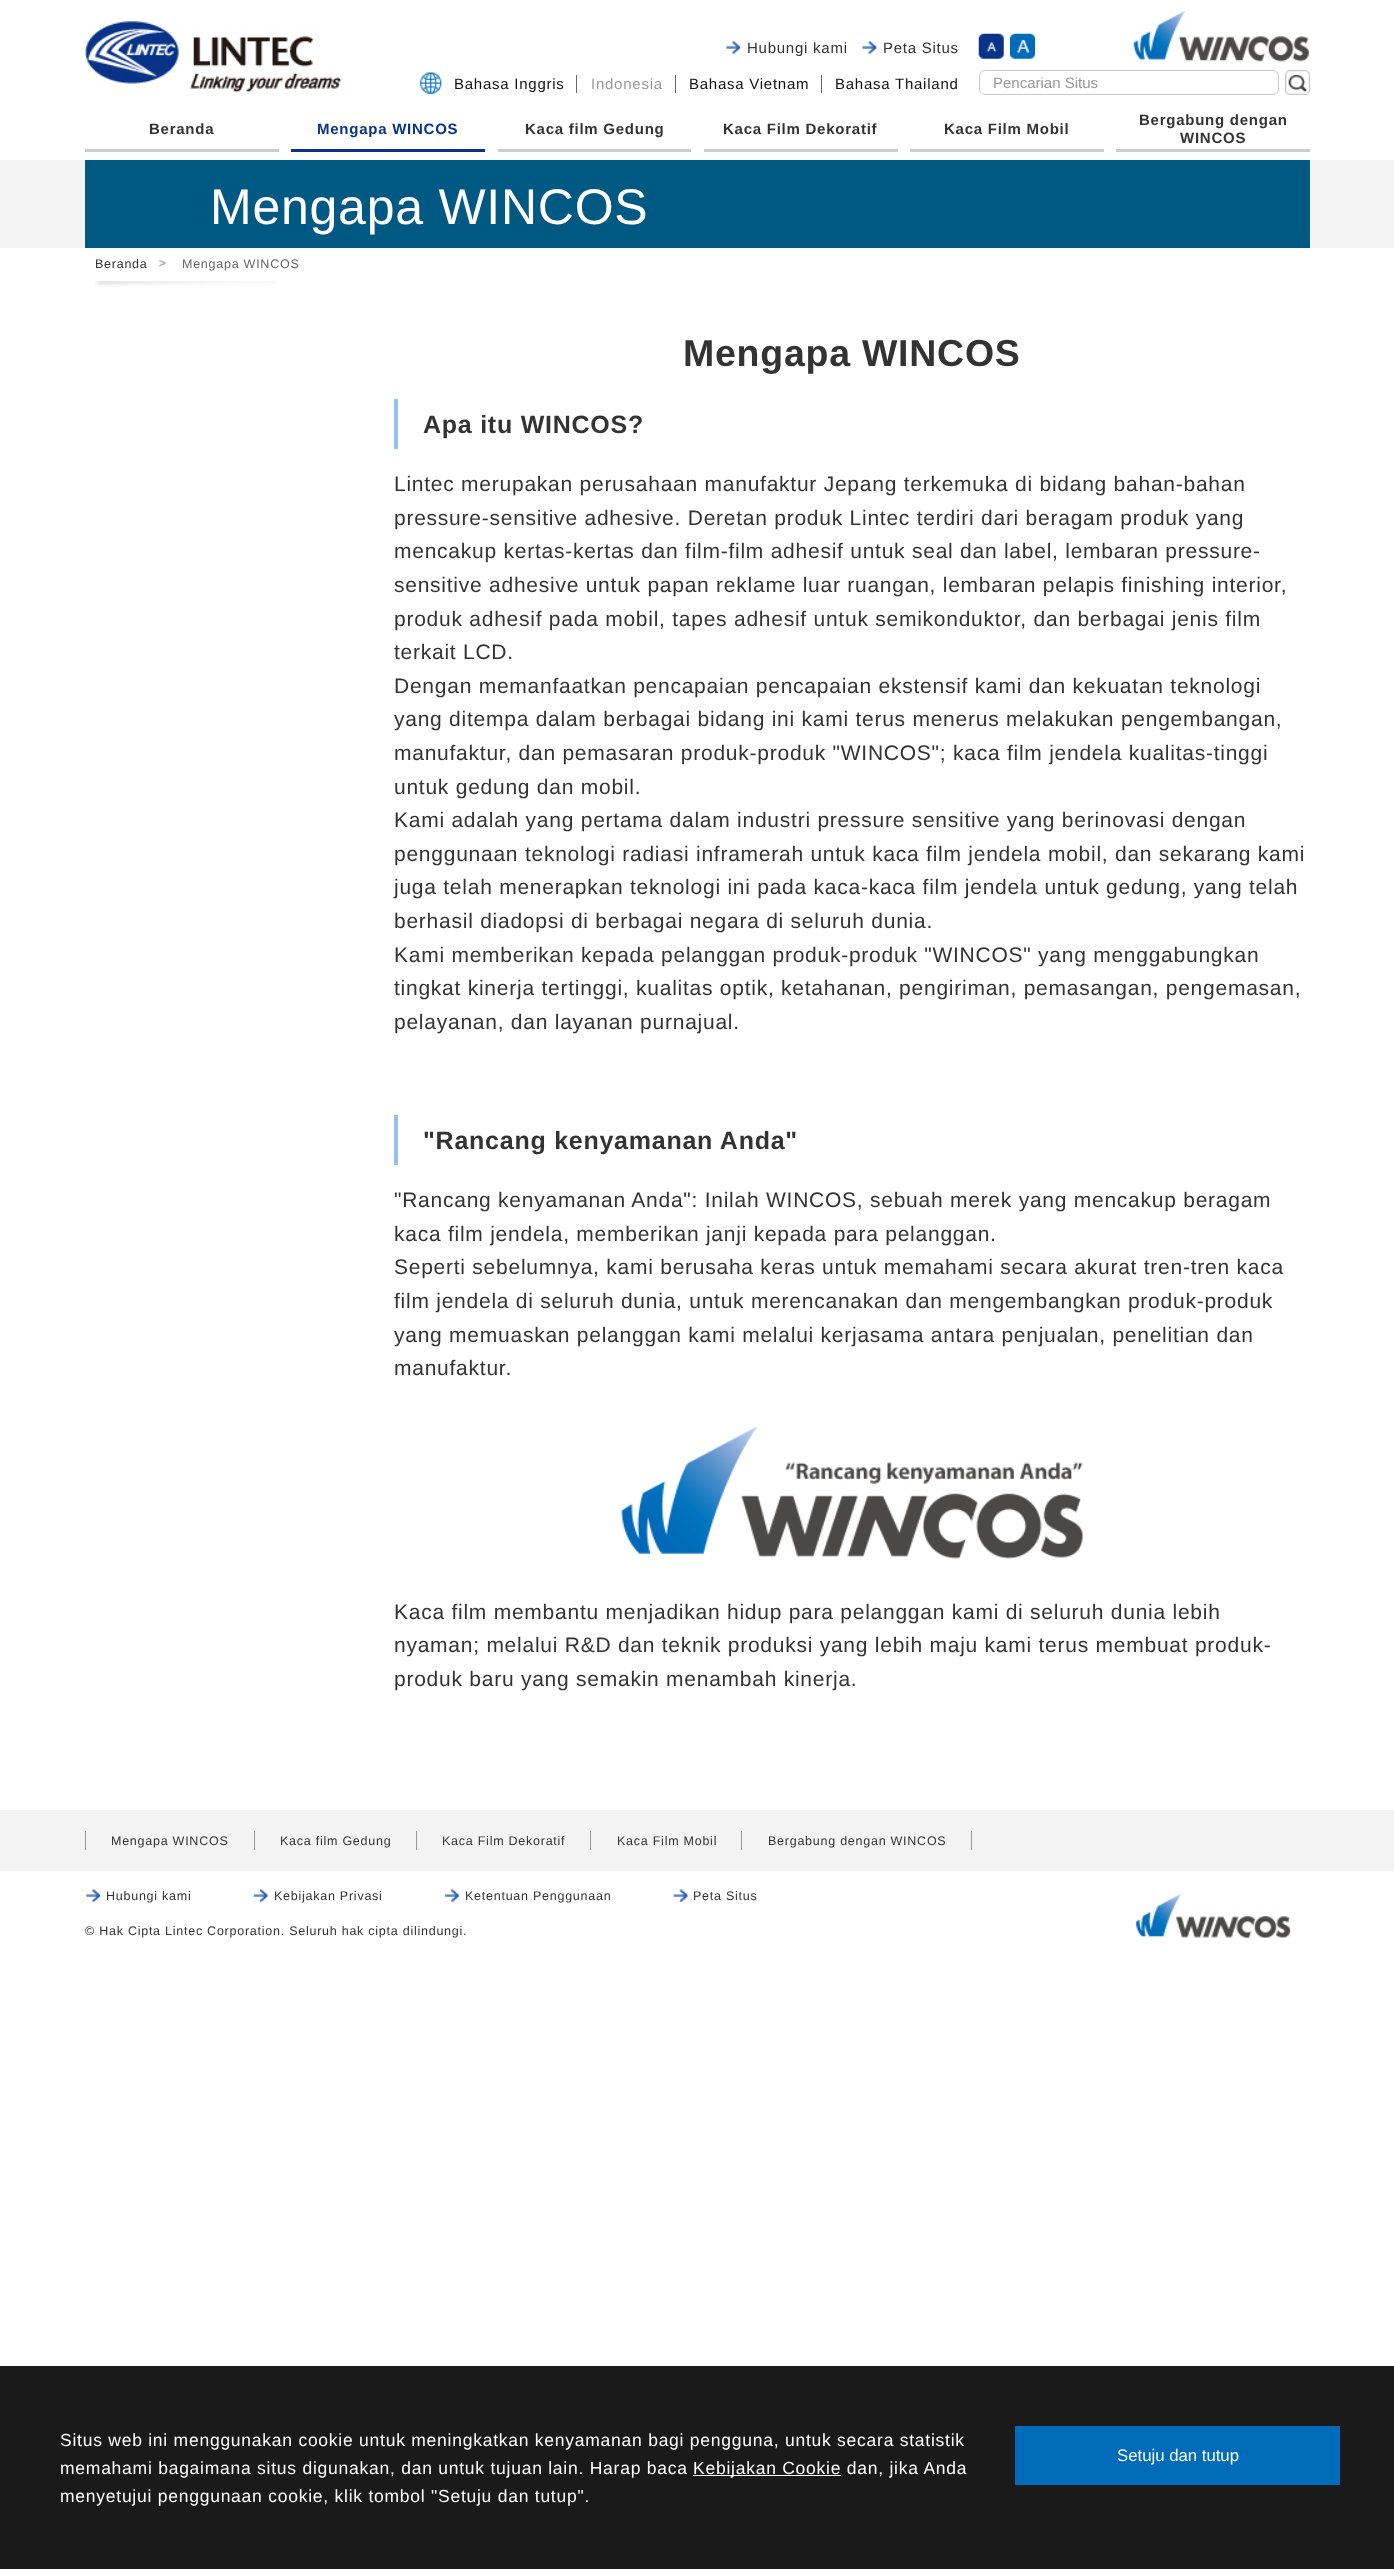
<?xml version="1.0" encoding="UTF-8"?>
<svg xmlns="http://www.w3.org/2000/svg" xmlns:xlink="http://www.w3.org/1999/xlink" width="1394" height="2569">
  <rect width="100%" height="100%" fill="#ffffff" />
  <image x="85" y="21" width="257" height="71" xlink:href="image1.png" />
  <image x="726" y="41" width="15" height="13" xlink:href="image2.png" />
  <image x="862" y="41" width="15" height="13" xlink:href="image3.png" />
  <image x="978" y="33" width="26" height="26" xlink:href="image4.png" />
  <image x="1010" y="33" width="25" height="26" xlink:href="image5.png" />
  <image x="1133" y="10" width="176" height="52" xlink:href="image6.png" />
  <image x="419" y="72" width="23" height="22" xlink:href="image7.png" />
  <rect x="576" y="75" width="1" height="18" fill="#666666" />
  <rect x="675" y="75" width="1" height="18" fill="#666666" />
  <rect x="821" y="75" width="1" height="18" fill="#666666" />
  <rect x="979.5" y="70.5" width="299" height="24" rx="5.5" fill="none" stroke="#cccccc" />
  <image x="1285" y="70" width="25" height="25" xlink:href="image8.png" />
  <rect x="85" y="149" width="194" height="3" fill="#cccccc" />
  <rect x="291" y="149" width="194" height="3" fill="#093389" />
  <rect x="498" y="149" width="193" height="3" fill="#cccccc" />
  <rect x="704" y="149" width="194" height="3" fill="#cccccc" />
  <rect x="910" y="149" width="194" height="3" fill="#cccccc" />
  <rect x="1116" y="149" width="194" height="3" fill="#cccccc" />
  <rect y="160" width="1394" height="88" fill="#f3f3f3" />
  <rect x="85" y="160" width="1225" height="88" fill="#005982" />
  <image x="95" y="281" width="181" height="6" xlink:href="image9.png" />
  <image x="158" y="259" width="9" height="8" xlink:href="image10.png" />
  <rect x="394" y="399" width="4" height="50" fill="#97c0f1" />
  <rect x="394" y="1115" width="4" height="50" fill="#97c0f1" />
  <image x="621" y="1426" width="462" height="133" xlink:href="image11.png" />
  <rect y="1810" width="1394" height="61" fill="#f3f3f3" />
  <rect x="85" y="1831" width="1" height="19" fill="#999999" />
  <rect x="254" y="1831" width="1" height="19" fill="#999999" />
  <rect x="416" y="1831" width="1" height="19" fill="#999999" />
  <rect x="590" y="1831" width="1" height="19" fill="#999999" />
  <rect x="971" y="1831" width="1" height="19" fill="#999999" />
  <rect x="741" y="1831" width="1" height="19" fill="#999999" />
  <image x="86" y="1889" width="15" height="13" xlink:href="image12.png" />
  <image x="253" y="1889" width="15" height="13" xlink:href="image13.png" />
  <image x="444" y="1889" width="15" height="13" xlink:href="image14.png" />
  <image x="673" y="1889" width="15" height="13" xlink:href="image13.png" />
  <image x="1135" y="1893" width="156" height="46" xlink:href="image15.png" />
  <rect y="2366" width="1394" height="203" fill="#1a1a1a" />
  <rect x="693" y="2475" width="148" height="1" fill="#ffffff" />
  <rect x="1015" y="2426" width="325" height="59" fill="#006bb9" />
  <text x="747" y="53" style="font-family: Liberation Sans; font-size: 15px; letter-spacing: 0.75px; fill: #333333">Hubungi kami</text>
  <text x="883" y="53" style="font-family: Liberation Sans; font-size: 15px; letter-spacing: 0.75px; fill: #333333">Peta Situs</text>
  <text x="454" y="89" style="font-family: Liberation Sans; font-size: 15px; letter-spacing: 0.75px; fill: #111111">Bahasa Inggris</text>
  <text x="591" y="89" style="font-family: Liberation Sans; font-size: 15px; letter-spacing: 0.75px; fill: #999999">Indonesia</text>
  <text x="689" y="89" style="font-family: Liberation Sans; font-size: 15px; letter-spacing: 0.75px; fill: #111111">Bahasa Vietnam</text>
  <text x="835" y="89" style="font-family: Liberation Sans; font-size: 15px; letter-spacing: 0.75px; fill: #111111">Bahasa Thailand</text>
  <text x="993" y="88" style="font-family: Liberation Sans; font-size: 15px; fill: #999999">Pencarian Situs</text>
  <text x="149" y="134" style="font-family: Liberation Sans; font-size: 15px; font-weight: bold; letter-spacing: 0.75px; fill: #333333">Beranda</text>
  <text x="317" y="134" style="font-family: Liberation Sans; font-size: 15px; font-weight: bold; letter-spacing: 0.75px; fill: #083388">Mengapa WINCOS</text>
  <text x="525" y="134" style="font-family: Liberation Sans; font-size: 15px; font-weight: bold; letter-spacing: 0.75px; fill: #333333">Kaca film Gedung</text>
  <text x="723" y="134" style="font-family: Liberation Sans; font-size: 15px; font-weight: bold; letter-spacing: 0.75px; fill: #333333">Kaca Film Dekoratif</text>
  <text x="944" y="134" style="font-family: Liberation Sans; font-size: 15px; font-weight: bold; letter-spacing: 0.75px; fill: #333333">Kaca Film Mobil</text>
  <text x="1139" y="125" style="font-family: Liberation Sans; font-size: 15px; font-weight: bold; letter-spacing: 0.75px; fill: #333333">Bergabung dengan</text>
  <text x="1180" y="143" style="font-family: Liberation Sans; font-size: 15px; font-weight: bold; letter-spacing: 0.75px; fill: #333333">WINCOS</text>
  <text x="210" y="224" style="font-family: Liberation Sans; font-size: 50px; letter-spacing: 0.75px; fill: #ffffff">Mengapa WINCOS</text>
  <text x="95" y="268" style="font-family: Liberation Sans; font-size: 12.5px; letter-spacing: 0.75px; fill: #333333">Beranda</text>
  <text x="182" y="268" style="font-family: Liberation Sans; font-size: 12.5px; letter-spacing: 0.75px; fill: #666666">Mengapa WINCOS</text>
  <text x="683" y="366" style="font-family: Liberation Sans; font-size: 37.5px; font-weight: bold; letter-spacing: 0.75px; fill: #333333">Mengapa WINCOS</text>
  <text x="423" y="433" style="font-family: Liberation Sans; font-size: 25px; font-weight: bold; letter-spacing: 0.75px; fill: #333333">Apa itu WINCOS?</text>
  <text x="394" y="491" style="font-family: Liberation Sans; font-size: 21px; letter-spacing: 0.75px; fill: #333333">Lintec merupakan perusahaan manufaktur Jepang terkemuka di bidang bahan-bahan</text>
  <text x="394" y="525" style="font-family: Liberation Sans; font-size: 21px; letter-spacing: 0.75px; fill: #333333">pressure-sensitive adhesive. Deretan produk Lintec terdiri dari beragam produk yang</text>
  <text x="394" y="558" style="font-family: Liberation Sans; font-size: 21px; letter-spacing: 0.75px; fill: #333333">mencakup kertas-kertas dan film-film adhesif untuk seal dan label, lembaran pressure-</text>
  <text x="394" y="592" style="font-family: Liberation Sans; font-size: 21px; letter-spacing: 0.75px; fill: #333333">sensitive adhesive untuk papan reklame luar ruangan, lembaran pelapis finishing interior,</text>
  <text x="394" y="626" style="font-family: Liberation Sans; font-size: 21px; letter-spacing: 0.75px; fill: #333333">produk adhesif pada mobil, tapes adhesif untuk semikonduktor, dan berbagai jenis film</text>
  <text x="394" y="659" style="font-family: Liberation Sans; font-size: 21px; letter-spacing: 0.75px; fill: #333333">terkait LCD.</text>
  <text x="394" y="693" style="font-family: Liberation Sans; font-size: 21px; letter-spacing: 0.75px; fill: #333333">Dengan memanfaatkan pencapaian pencapaian ekstensif kami dan kekuatan teknologi</text>
  <text x="394" y="726" style="font-family: Liberation Sans; font-size: 21px; letter-spacing: 0.75px; fill: #333333">yang ditempa dalam berbagai bidang ini kami terus menerus melakukan pengembangan,</text>
  <text x="394" y="760" style="font-family: Liberation Sans; font-size: 21px; letter-spacing: 0.75px; fill: #333333">manufaktur, dan pemasaran produk-produk "WINCOS"; kaca film jendela kualitas-tinggi</text>
  <text x="394" y="794" style="font-family: Liberation Sans; font-size: 21px; letter-spacing: 0.75px; fill: #333333">untuk gedung dan mobil.</text>
  <text x="394" y="827" style="font-family: Liberation Sans; font-size: 21px; letter-spacing: 0.75px; fill: #333333">Kami adalah yang pertama dalam industri pressure sensitive yang berinovasi dengan</text>
  <text x="394" y="861" style="font-family: Liberation Sans; font-size: 21px; letter-spacing: 0.75px; fill: #333333">penggunaan teknologi radiasi inframerah untuk kaca film jendela mobil, dan sekarang kami</text>
  <text x="394" y="894" style="font-family: Liberation Sans; font-size: 21px; letter-spacing: 0.75px; fill: #333333">juga telah menerapkan teknologi ini pada kaca-kaca film jendela untuk gedung, yang telah</text>
  <text x="394" y="928" style="font-family: Liberation Sans; font-size: 21px; letter-spacing: 0.75px; fill: #333333">berhasil diadopsi di berbagai negara di seluruh dunia.</text>
  <text x="394" y="962" style="font-family: Liberation Sans; font-size: 21px; letter-spacing: 0.75px; fill: #333333">Kami memberikan kepada pelanggan produk-produk "WINCOS" yang menggabungkan</text>
  <text x="394" y="995" style="font-family: Liberation Sans; font-size: 21px; letter-spacing: 0.75px; fill: #333333">tingkat kinerja tertinggi, kualitas optik, ketahanan, pengiriman, pemasangan, pengemasan,</text>
  <text x="394" y="1029" style="font-family: Liberation Sans; font-size: 21px; letter-spacing: 0.75px; fill: #333333">pelayanan, dan layanan purnajual.</text>
  <text x="423" y="1149" style="font-family: Liberation Sans; font-size: 25px; font-weight: bold; letter-spacing: 0.75px; fill: #333333">"Rancang kenyamanan Anda"</text>
  <text x="394" y="1207" style="font-family: Liberation Sans; font-size: 21px; letter-spacing: 0.75px; fill: #333333">"Rancang kenyamanan Anda": Inilah WINCOS, sebuah merek yang mencakup beragam</text>
  <text x="394" y="1241" style="font-family: Liberation Sans; font-size: 21px; letter-spacing: 0.75px; fill: #333333">kaca film jendela, memberikan janji kepada para pelanggan.</text>
  <text x="394" y="1274" style="font-family: Liberation Sans; font-size: 21px; letter-spacing: 0.75px; fill: #333333">Seperti sebelumnya, kami berusaha keras untuk memahami secara akurat tren-tren kaca</text>
  <text x="394" y="1308" style="font-family: Liberation Sans; font-size: 21px; letter-spacing: 0.75px; fill: #333333">film jendela di seluruh dunia, untuk merencanakan dan mengembangkan produk-produk</text>
  <text x="394" y="1342" style="font-family: Liberation Sans; font-size: 21px; letter-spacing: 0.75px; fill: #333333">yang memuaskan pelanggan kami melalui kerjasama antara penjualan, penelitian dan</text>
  <text x="394" y="1375" style="font-family: Liberation Sans; font-size: 21px; letter-spacing: 0.75px; fill: #333333">manufaktur.</text>
  <text x="394" y="1619" style="font-family: Liberation Sans; font-size: 21px; letter-spacing: 0.75px; fill: #333333">Kaca film membantu menjadikan hidup para pelanggan kami di seluruh dunia lebih</text>
  <text x="394" y="1652" style="font-family: Liberation Sans; font-size: 21px; letter-spacing: 0.75px; fill: #333333">nyaman; melalui R&amp;D dan teknik produksi yang lebih maju kami terus membuat produk-</text>
  <text x="394" y="1686" style="font-family: Liberation Sans; font-size: 21px; letter-spacing: 0.75px; fill: #333333">produk baru yang semakin menambah kinerja.</text>
  <text x="111" y="1845" style="font-family: Liberation Sans; font-size: 12.5px; letter-spacing: 0.75px; fill: #333333">Mengapa WINCOS</text>
  <text x="280" y="1845" style="font-family: Liberation Sans; font-size: 12.5px; letter-spacing: 0.75px; fill: #333333">Kaca film Gedung</text>
  <text x="442" y="1845" style="font-family: Liberation Sans; font-size: 12.5px; letter-spacing: 0.75px; fill: #333333">Kaca Film Dekoratif</text>
  <text x="617" y="1845" style="font-family: Liberation Sans; font-size: 12.5px; letter-spacing: 0.75px; fill: #333333">Kaca Film Mobil</text>
  <text x="768" y="1845" style="font-family: Liberation Sans; font-size: 12.5px; letter-spacing: 0.75px; fill: #333333">Bergabung dengan WINCOS</text>
  <text x="106" y="1900" style="font-family: Liberation Sans; font-size: 12.5px; letter-spacing: 0.75px; fill: #333333">Hubungi kami</text>
  <text x="274" y="1900" style="font-family: Liberation Sans; font-size: 12.5px; letter-spacing: 0.75px; fill: #333333">Kebijakan Privasi</text>
  <text x="465" y="1900" style="font-family: Liberation Sans; font-size: 12.5px; letter-spacing: 0.75px; fill: #333333">Ketentuan Penggunaan</text>
  <text x="693" y="1900" style="font-family: Liberation Sans; font-size: 12.5px; letter-spacing: 0.75px; fill: #333333">Peta Situs</text>
  <text x="85" y="1935" style="font-family: Liberation Sans; font-size: 12.5px; letter-spacing: 0.75px; fill: #333333">© Hak Cipta Lintec Corporation. Seluruh hak cipta dilindungi.</text>
  <text x="60" y="2446" style="font-family: Liberation Sans; font-size: 17.5px; letter-spacing: 0.75px; fill: #ffffff">Situs web ini menggunakan cookie untuk meningkatkan kenyamanan bagi pengguna, untuk secara statistik</text>
  <text x="60" y="2474" style="font-family: Liberation Sans; font-size: 17.5px; letter-spacing: 0.75px; fill: #ffffff">memahami bagaimana situs digunakan, dan untuk tujuan lain. Harap baca</text>
  <text x="693" y="2474" style="font-family: Liberation Sans; font-size: 17.5px; letter-spacing: 0.75px; fill: #ffffff">Kebijakan Cookie dan, jika Anda</text>
  <text x="60" y="2502" style="font-family: Liberation Sans; font-size: 17.5px; letter-spacing: 0.75px; fill: #ffffff">menyetujui penggunaan cookie, klik tombol "Setuju dan tutup".</text>
  <text x="1117" y="2461" style="font-family: Liberation Sans; font-size: 16.75px; fill: #ffffff">Setuju dan tutup</text>
</svg>
